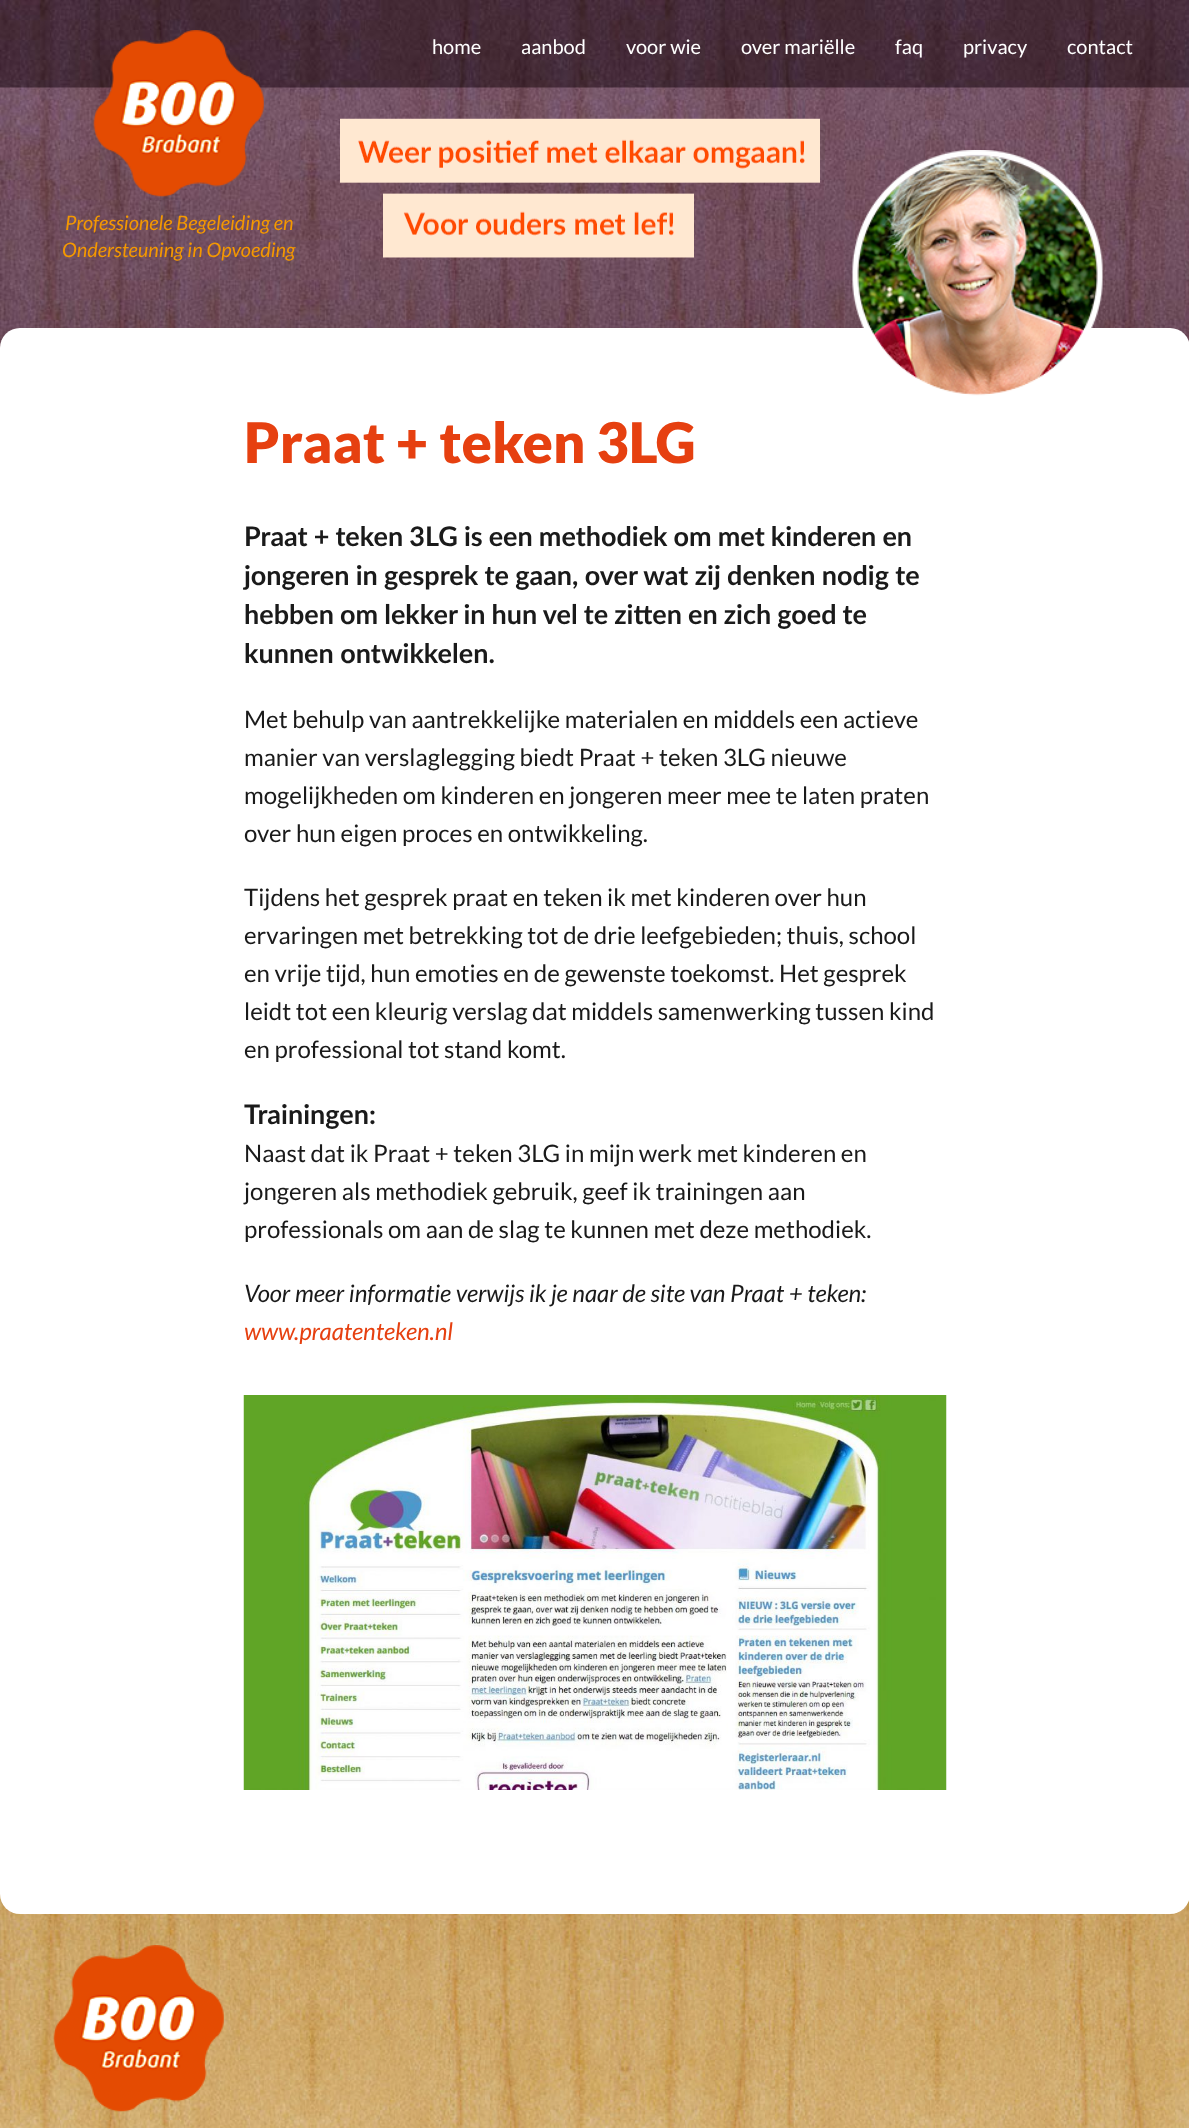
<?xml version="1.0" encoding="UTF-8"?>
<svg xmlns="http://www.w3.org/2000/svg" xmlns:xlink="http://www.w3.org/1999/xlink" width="1189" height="2128">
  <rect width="100%" height="100%" fill="#ffffff" />
  <image x="0" y="1894" width="1189" height="234" xlink:href="image1.png" />
  <image x="0" y="87" width="1189" height="261" xlink:href="image2.png" />
  <image x="0" y="0" width="1189" height="88" xlink:href="image3.png" />
  <image x="93" y="30" width="171" height="167" xlink:href="image4.png" />
  <image x="340" y="118" width="480" height="140" xlink:href="image5.png" />
  <rect y="328" width="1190" height="1586" rx="20" fill="#ffffff" />
  <image x="852" y="150" width="251" height="246" xlink:href="image6.png" />
  <image x="243" y="1395" width="704" height="395" xlink:href="image7.png" />
  <image x="53" y="1945" width="171" height="167" xlink:href="image8.png" />
  <text x="432" y="54" style="font-family: Lato; font-size: 20px; fill: #ffffff">home</text>
  <text x="521" y="54" style="font-family: Lato; font-size: 20px; fill: #ffffff">aanbod</text>
  <text x="626" y="54" style="font-family: Lato; font-size: 20px; fill: #ffffff">voor wie</text>
  <text x="741" y="54" style="font-family: Lato; font-size: 20px; fill: #ffffff">over mariëlle</text>
  <text x="895" y="54" style="font-family: Lato; font-size: 20px; fill: #ffffff">faq</text>
  <text x="963" y="54" style="font-family: Lato; font-size: 20px; fill: #ffffff">privacy</text>
  <text x="1067" y="54" style="font-family: Lato; font-size: 20px; fill: #ffffff">contact</text>
  <text x="65" y="230" style="font-family: Lato; font-size: 20px; font-style: italic; fill: #f49800">Professionele Begeleiding en</text>
  <text x="62" y="257" style="font-family: Lato; font-size: 20px; font-style: italic; fill: #f49800">Ondersteuning in Opvoeding</text>
  <text x="244" y="463" style="font-family: Lato; font-size: 56px; font-weight: 900; fill: #e64010">Praat + teken 3LG</text>
  <text x="244" y="546" word-spacing="-0.5" style="font-family: Lato; font-size: 27px; font-weight: bold; fill: #1a1a1a">Praat + teken 3LG is een methodiek om met kinderen en</text>
  <text x="244" y="585" word-spacing="-0.25" style="font-family: Lato; font-size: 27px; font-weight: bold; fill: #1a1a1a">jongeren in gesprek te gaan, over wat zij denken nodig te</text>
  <text x="244" y="624" word-spacing="-0.5" style="font-family: Lato; font-size: 27px; font-weight: bold; fill: #1a1a1a">hebben om lekker in hun vel te zitten en zich goed te</text>
  <text x="244" y="663" style="font-family: Lato; font-size: 27px; font-weight: bold; fill: #1a1a1a">kunnen ontwikkelen.</text>
  <text x="244" y="728" style="font-family: Lato; font-size: 24px; fill: #1a1a1a">Met behulp van aantrekkelijke materialen en middels een actieve</text>
  <text x="244" y="766" style="font-family: Lato; font-size: 24px; fill: #1a1a1a">manier van verslaglegging biedt Praat + teken 3LG nieuwe</text>
  <text x="244" y="804" style="font-family: Lato; font-size: 24px; fill: #1a1a1a">mogelijkheden om kinderen en jongeren meer mee te laten praten</text>
  <text x="244" y="842" style="font-family: Lato; font-size: 24px; fill: #1a1a1a">over hun eigen proces en ontwikkeling.</text>
  <text x="244" y="906" style="font-family: Lato; font-size: 24px; fill: #1a1a1a">Tijdens het gesprek praat en teken ik met kinderen over hun</text>
  <text x="244" y="944" style="font-family: Lato; font-size: 24px; fill: #1a1a1a">ervaringen met betrekking tot de drie leefgebieden; thuis, school</text>
  <text x="244" y="982" style="font-family: Lato; font-size: 24px; fill: #1a1a1a">en vrije tijd, hun emoties en de gewenste toekomst. Het gesprek</text>
  <text x="244" y="1020" style="font-family: Lato; font-size: 24px; fill: #1a1a1a">leidt tot een kleurig verslag dat middels samenwerking tussen kind</text>
  <text x="244" y="1058" style="font-family: Lato; font-size: 24px; fill: #1a1a1a">en professional tot stand komt.</text>
  <text x="244" y="1124" style="font-family: Lato; font-size: 27px; font-weight: bold; fill: #1a1a1a">Trainingen:</text>
  <text x="244" y="1162" style="font-family: Lato; font-size: 24px; fill: #1a1a1a">Naast dat ik Praat + teken 3LG in mijn werk met kinderen en</text>
  <text x="244" y="1200" style="font-family: Lato; font-size: 24px; fill: #1a1a1a">jongeren als methodiek gebruik, geef ik trainingen aan</text>
  <text x="244" y="1238" style="font-family: Lato; font-size: 24px; fill: #1a1a1a">professionals om aan de slag te kunnen met deze methodiek.</text>
  <text x="244" y="1302" style="font-family: Lato; font-size: 24px; font-style: italic; fill: #1a1a1a">Voor meer informatie verwijs ik je naar de site van Praat + teken:</text>
  <text x="244" y="1340" style="font-family: Lato; font-size: 24px; font-style: italic; fill: #e64010">www.praatenteken.nl</text>
</svg>
